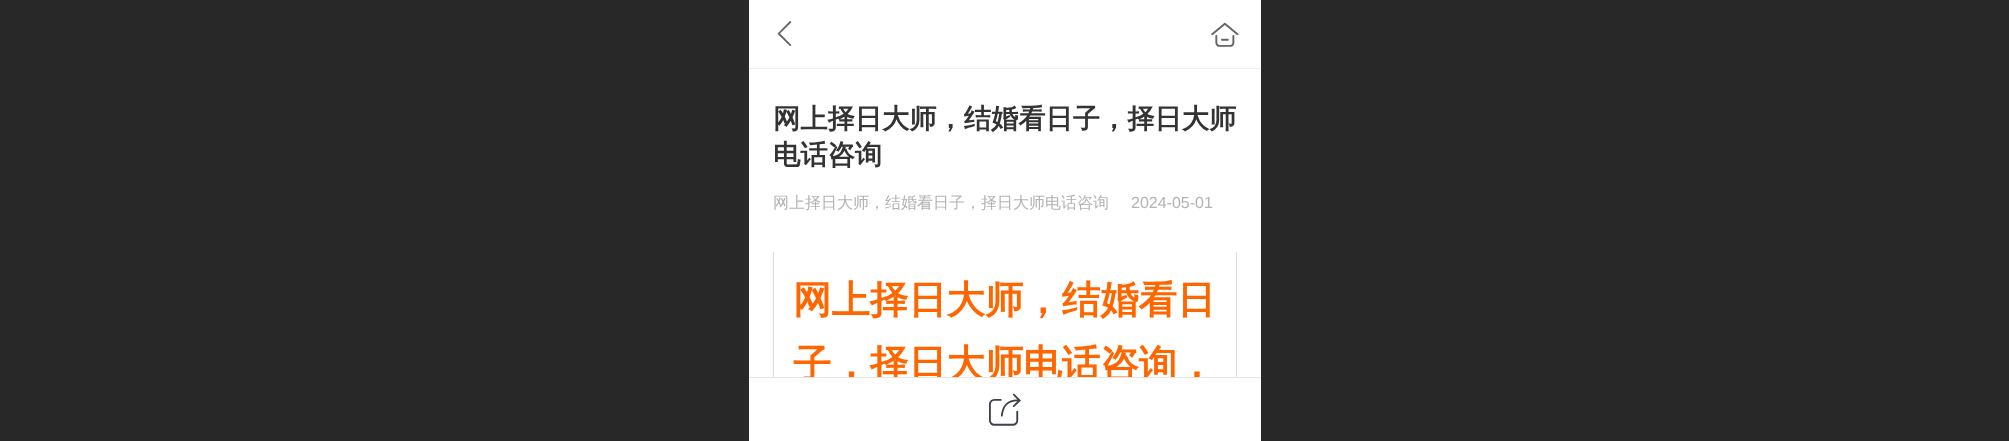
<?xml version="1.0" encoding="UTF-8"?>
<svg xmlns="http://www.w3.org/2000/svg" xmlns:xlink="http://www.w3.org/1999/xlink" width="2009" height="441">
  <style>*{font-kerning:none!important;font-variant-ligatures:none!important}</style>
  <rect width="100%" height="100%" fill="#ffffff" />
  <rect width="749" height="441" fill="#282828" />
  <rect x="749" y="68" width="512" height="1" fill="#eeeeee" />
  <rect x="1236" y="252" width="1" height="125" fill="#dedede" />
  <rect x="773" y="252" width="1" height="125" fill="#dedede" />
  <rect x="1261" width="748" height="441" fill="#282828" />
  <text x="772" y="44" style="font-family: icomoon; font-size: 25px; fill: #666666">򰊔</text>
  <text x="1211" y="46" style="font-family: icomoon; font-size: 27.25px; fill: #666666">򰌓</text>
  <text x="773" y="128" style="font-family: WenQuanYi Zen Hei; font-size: 27.25px; font-weight: bold; fill: #333333">网上择日大师，结婚看日子，择日大师</text>
  <text x="773" y="164" style="font-family: WenQuanYi Zen Hei; font-size: 27.25px; font-weight: bold; fill: #333333">电话咨询</text>
  <text x="773" y="208" style="font-family: WenQuanYi Zen Hei; font-size: 16px; font-weight: 500; fill: #b3b3b3">网上择日大师，结婚看日子，择日大师电话咨询</text>
  <text x="1131" y="208" style="font-family: Liberation Sans; font-size: 16px; fill: #b3b3b3">2024-05-01</text>
  <text x="793" y="313" style="font-family: WenQuanYi Zen Hei; font-size: 38.4px; font-weight: bold; fill: #ff6600">网上择日大师，结婚看日</text>
  <text x="793" y="377" style="font-family: WenQuanYi Zen Hei; font-size: 38.4px; font-weight: bold; fill: #ff6600">子，择日大师电话咨询，</text>
  <rect x="805" y="378" width="394" height="5" fill="#ffffff" />
  <rect x="749" y="377" width="512" height="1" fill="#e5e5e5" />
  <text x="989" y="423" style="font-family: icomoon; font-size: 32px; fill: #3c414a">򰌐</text>
</svg>
